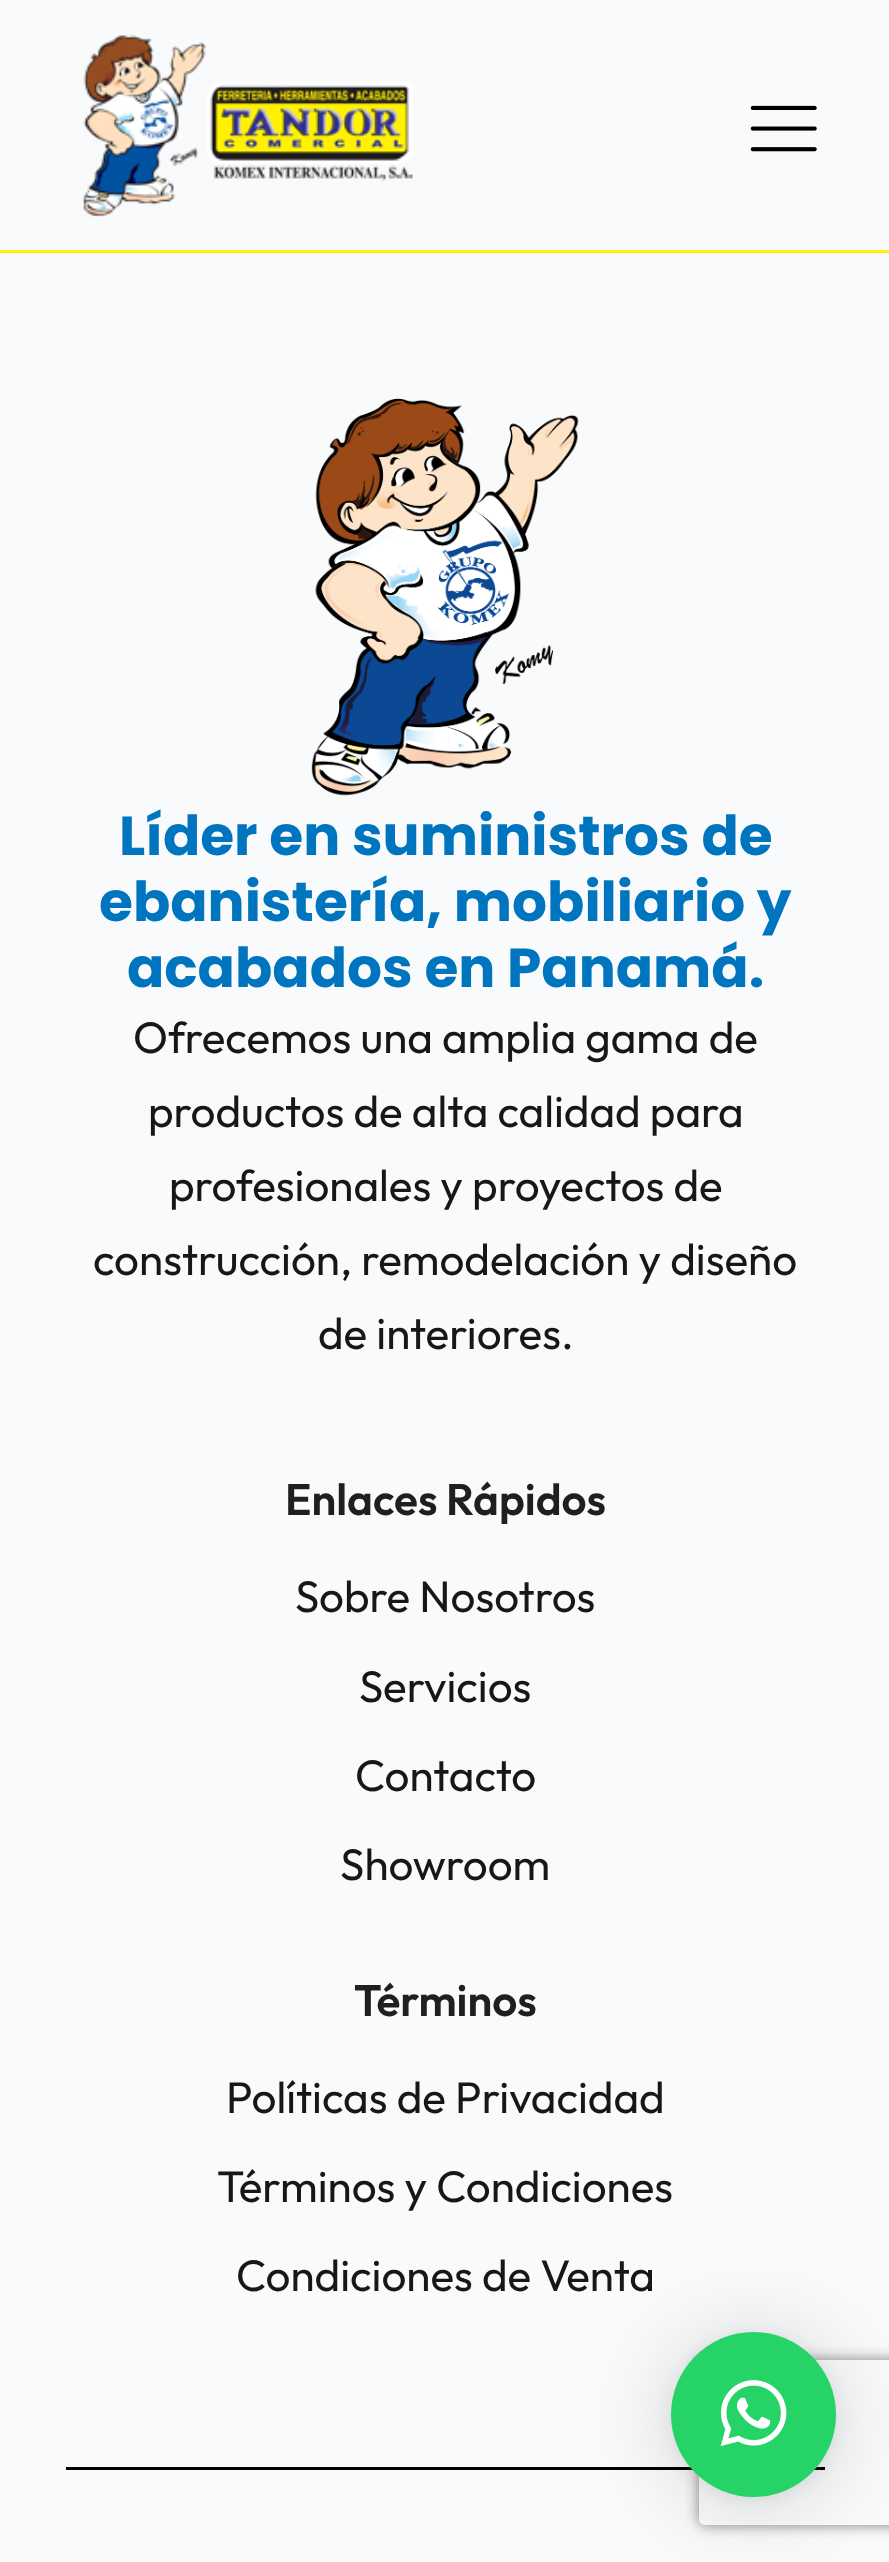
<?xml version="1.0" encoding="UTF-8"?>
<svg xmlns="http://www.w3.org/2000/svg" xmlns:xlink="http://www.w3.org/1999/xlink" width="889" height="2562">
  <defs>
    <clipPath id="clip1"><path d="M 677 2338 h 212 v 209 h -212 z m 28 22 h 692 c 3.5 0 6 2.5 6 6 v 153 c 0 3.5 -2.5 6 -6 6 h -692 c -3.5 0 -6 -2.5 -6 -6 v -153 c 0 -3.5 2.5 -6 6 -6 z" clip-rule="evenodd" /></clipPath>
  </defs>
  <rect width="100%" height="100%" fill="#f9fafb" />
  <rect y="250" width="889" height="3" fill="#fff100" />
  <image x="83" y="35" width="330" height="182" xlink:href="image1.png" />
  <image x="750" y="105" width="67" height="47" xlink:href="image2.png" />
  <rect x="66" y="2467" width="759" height="3" fill="#000000" />
  <image x="311" y="398" width="268" height="398" xlink:href="image3.png" />
  <rect x="671" y="2338" width="165" height="165" rx="82.5" fill="#000000" fill-opacity="0.16" filter="blur(44px)" />
  <rect x="671" y="2335" width="165" height="165" rx="82.5" fill="#000000" fill-opacity="0.06" filter="blur(8px)" />
  <g clip-path="url(#clip1)">
    <rect x="699" y="2360" width="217" height="165" rx="6" fill="#808080" filter="blur(7px)" />
  </g>
  <circle cx="753.5" cy="2414.5" r="82.5" fill="#25d366" />
  <image x="720" y="2380" width="67" height="67" xlink:href="image4.png" />
  <text x="119" y="855" style="font-family: Poppins; font-size: 55px; font-weight: bold; fill: #0075bf">Líder en suministros de</text>
  <text x="99" y="921" style="font-family: Poppins; font-size: 55px; font-weight: bold; fill: #0075bf">ebanistería, mobiliario y</text>
  <text x="127" y="987" style="font-family: Poppins; font-size: 55px; font-weight: bold; fill: #0075bf">acabados en Panamá.</text>
  <text x="133" y="1053" style="font-family: Outfit; font-size: 44px; fill: #171717">Ofrecemos una amplia gama de</text>
  <text x="148" y="1127" style="font-family: Outfit; font-size: 44px; fill: #171717">productos de alta calidad para</text>
  <text x="169" y="1201" style="font-family: Outfit; font-size: 44px; fill: #171717">profesionales y proyectos de</text>
  <text x="93" y="1275" style="font-family: Outfit; font-size: 44px; fill: #171717">construcción, remodelación y diseño</text>
  <text x="318" y="1349" style="font-family: Outfit; font-size: 44px; fill: #171717">de interiores.</text>
  <text x="285" y="1515" style="font-family: Outfit; font-size: 44px; font-weight: 600; fill: #201e1e">Enlaces Rápidos</text>
  <text x="295" y="1612" style="font-family: Outfit; font-size: 44px; fill: #171717">Sobre Nosotros</text>
  <text x="359" y="1702" style="font-family: Outfit; font-size: 44px; fill: #171717">Servicios</text>
  <text x="355" y="1791" style="font-family: Outfit; font-size: 44px; fill: #171717">Contacto</text>
  <text x="340" y="1880" style="font-family: Outfit; font-size: 44px; fill: #171717">Showroom</text>
  <text x="354" y="2016" style="font-family: Outfit; font-size: 44px; font-weight: 600; fill: #201e1e">Términos</text>
  <text x="226" y="2113" style="font-family: Outfit; font-size: 44px; fill: #171717">Políticas de Privacidad</text>
  <text x="217" y="2202" style="font-family: Outfit; font-size: 44px; fill: #171717">Términos y Condiciones</text>
  <text x="236" y="2291" style="font-family: Outfit; font-size: 44px; fill: #171717">Condiciones de Venta</text>
</svg>
